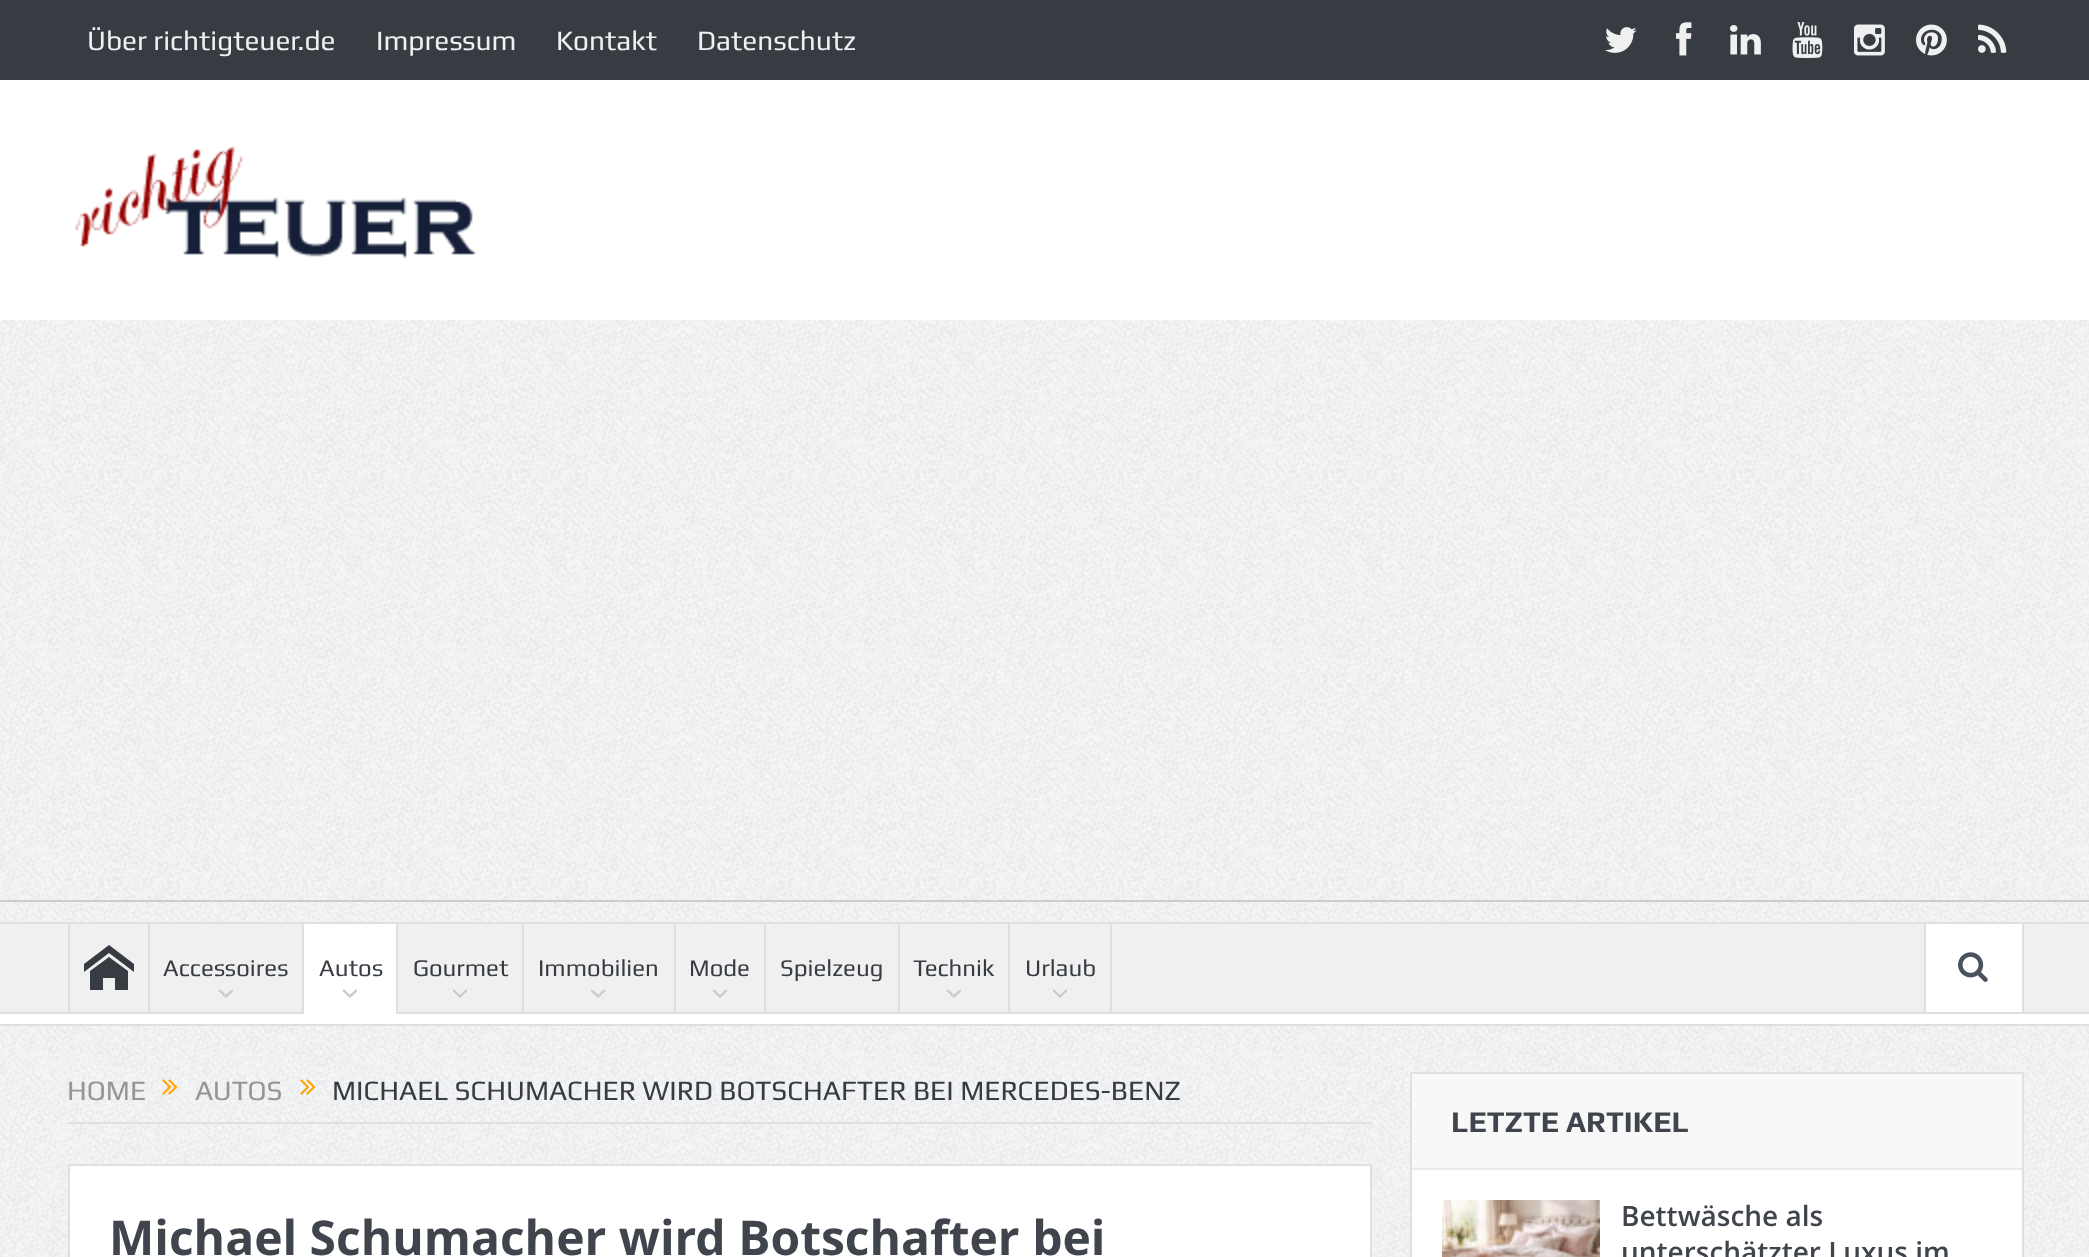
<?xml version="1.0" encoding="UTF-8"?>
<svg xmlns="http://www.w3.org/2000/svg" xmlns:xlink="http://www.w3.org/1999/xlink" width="2089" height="1257">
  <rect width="100%" height="100%" fill="#ffffff" />
  <image x="0" y="320" width="2089" height="937" xlink:href="image1.png" />
  <rect width="2089" height="80" fill="#373c43" />
  <image x="1605" y="27" width="32" height="26" xlink:href="image2.png" />
  <image x="1676" y="22" width="16" height="34" xlink:href="image3.png" />
  <image x="1730" y="25" width="31" height="30" xlink:href="image4.png" />
  <image x="1792" y="22" width="31" height="36" xlink:href="image5.png" />
  <image x="1854" y="24" width="31" height="32" xlink:href="image6.png" />
  <image x="1916" y="24" width="31" height="32" xlink:href="image7.png" />
  <image x="1978" y="24" width="29" height="29" xlink:href="image8.png" />
  <image x="75" y="145" width="402" height="114" xlink:href="image9.png" />
  <rect y="900" width="2089" height="2" fill="#cccccc" />
  <rect y="1014" width="2089" height="10" fill="#ffffff" />
  <rect y="922" width="2089" height="2" fill="#dfdfdf" />
  <rect y="1024" width="2089" height="2" fill="#dfdfdf" />
  <rect y="924" width="2089" height="88" fill="#f0f0f0" />
  <rect y="1012" width="2089" height="2" fill="#dfdfdf" />
  <rect x="68" y="924" width="2" height="88" fill="#dfdfdf" />
  <path d="M 134 972 l -25 -19 l -25 19 v -8 l 25 -19 l 25 19 z m -6 -1 v 19 h -13 v -12 h -12 v 12 h -13 v -19 l 19 -14 z" fill="#373c43" />
  <rect x="148" y="924" width="2" height="88" fill="#dfdfdf" />
  <image x="218" y="989" width="16" height="9" xlink:href="image10.png" />
  <rect x="302" y="924" width="2" height="88" fill="#dfdfdf" />
  <rect x="304" y="924" width="92" height="90" fill="#ffffff" />
  <image x="342" y="989" width="16" height="9" xlink:href="image11.png" />
  <rect x="396" y="924" width="2" height="88" fill="#dfdfdf" />
  <image x="452" y="989" width="16" height="9" xlink:href="image10.png" />
  <rect x="522" y="924" width="2" height="88" fill="#dfdfdf" />
  <image x="590" y="989" width="16" height="9" xlink:href="image10.png" />
  <rect x="674" y="924" width="2" height="88" fill="#dfdfdf" />
  <image x="712" y="989" width="16" height="9" xlink:href="image10.png" />
  <rect x="764" y="924" width="2" height="88" fill="#dfdfdf" />
  <rect x="898" y="924" width="2" height="88" fill="#dfdfdf" />
  <image x="946" y="989" width="16" height="9" xlink:href="image10.png" />
  <rect x="1110" y="924" width="2" height="88" fill="#dfdfdf" />
  <rect x="1008" y="924" width="2" height="88" fill="#dfdfdf" />
  <image x="1052" y="989" width="16" height="9" xlink:href="image10.png" />
  <rect x="1926" y="924" width="96" height="88" fill="#ffffff" />
  <rect x="2022" y="924" width="2" height="88" fill="#dfdfdf" />
  <rect x="1924" y="924" width="2" height="88" fill="#dfdfdf" />
  <image x="1958" y="952" width="30" height="30" xlink:href="image12.png" />
  <rect x="68" y="1122" width="1304" height="2" fill="#e0e0e0" />
  <image x="162" y="1079" width="16" height="16" xlink:href="image13.png" />
  <image x="300" y="1079" width="16" height="16" xlink:href="image14.png" />
  <rect x="69" y="1165" width="1302" height="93" fill="#ffffff" stroke="#e0e0e0" stroke-width="2" />
  <rect x="1412" y="1170" width="610" height="87" fill="#ffffff" />
  <rect x="1411" y="1073" width="612" height="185" fill="none" stroke="#e0e0e0" stroke-width="2" />
  <rect x="1412" y="1074" width="610" height="94" fill="#f8f8f8" />
  <rect x="1412" y="1168" width="610" height="2" fill="#eaeaea" />
  <image x="1442" y="1200" width="158" height="57" xlink:href="image15.png" />
  <text x="87" y="50" style="font-family: Play; font-size: 28px; fill: #f0f0f0">Über richtigteuer.de</text>
  <text x="376" y="50" style="font-family: Play; font-size: 28px; fill: #f0f0f0">Impressum</text>
  <text x="556" y="50" style="font-family: Play; font-size: 28px; fill: #f0f0f0">Kontakt</text>
  <text x="697" y="50" style="font-family: Play; font-size: 28px; fill: #f0f0f0">Datenschutz</text>
  <text x="163" y="976" style="font-family: Play; font-size: 24px; fill: #373c43">Accessoires</text>
  <text x="319" y="976" style="font-family: Play; font-size: 24px; fill: #373c43">Autos</text>
  <text x="413" y="976" style="font-family: Play; font-size: 24px; fill: #373c43">Gourmet</text>
  <text x="538" y="976" style="font-family: Play; font-size: 24px; fill: #373c43">Immobilien</text>
  <text x="689" y="976" style="font-family: Play; font-size: 24px; fill: #373c43">Mode</text>
  <text x="780" y="976" style="font-family: Play; font-size: 24px; fill: #373c43">Spielzeug</text>
  <text x="913" y="976" style="font-family: Play; font-size: 24px; fill: #373c43">Technik</text>
  <text x="1025" y="976" style="font-family: Play; font-size: 24px; fill: #373c43">Urlaub</text>
  <text x="67" y="1100" style="font-family: Play; font-size: 28px; fill: #959595">HOME</text>
  <text x="195" y="1100" style="font-family: Play; font-size: 28px; fill: #959595">AUTOS</text>
  <text x="332" y="1100" style="font-family: Play; font-size: 28px; fill: #373c43">MICHAEL SCHUMACHER WIRD BOTSCHAFTER BEI MERCEDES-BENZ</text>
  <text x="109" y="1255" style="font-family: Open Sans; font-size: 48px; font-weight: bold; fill: #40454d">Michael Schumacher wird Botschafter bei</text>
  <text x="1451" y="1132" style="font-family: Play; font-size: 30px; font-weight: bold; fill: #40454d">LETZTE ARTIKEL</text>
  <text x="1621" y="1226" style="font-family: Open Sans; font-size: 28px; font-weight: 600; fill: #40454d">Bettwäsche als</text>
  <text x="1621" y="1262" style="font-family: Open Sans; font-size: 28px; font-weight: 600; fill: #40454d">unterschätzter Luxus im</text>
</svg>
